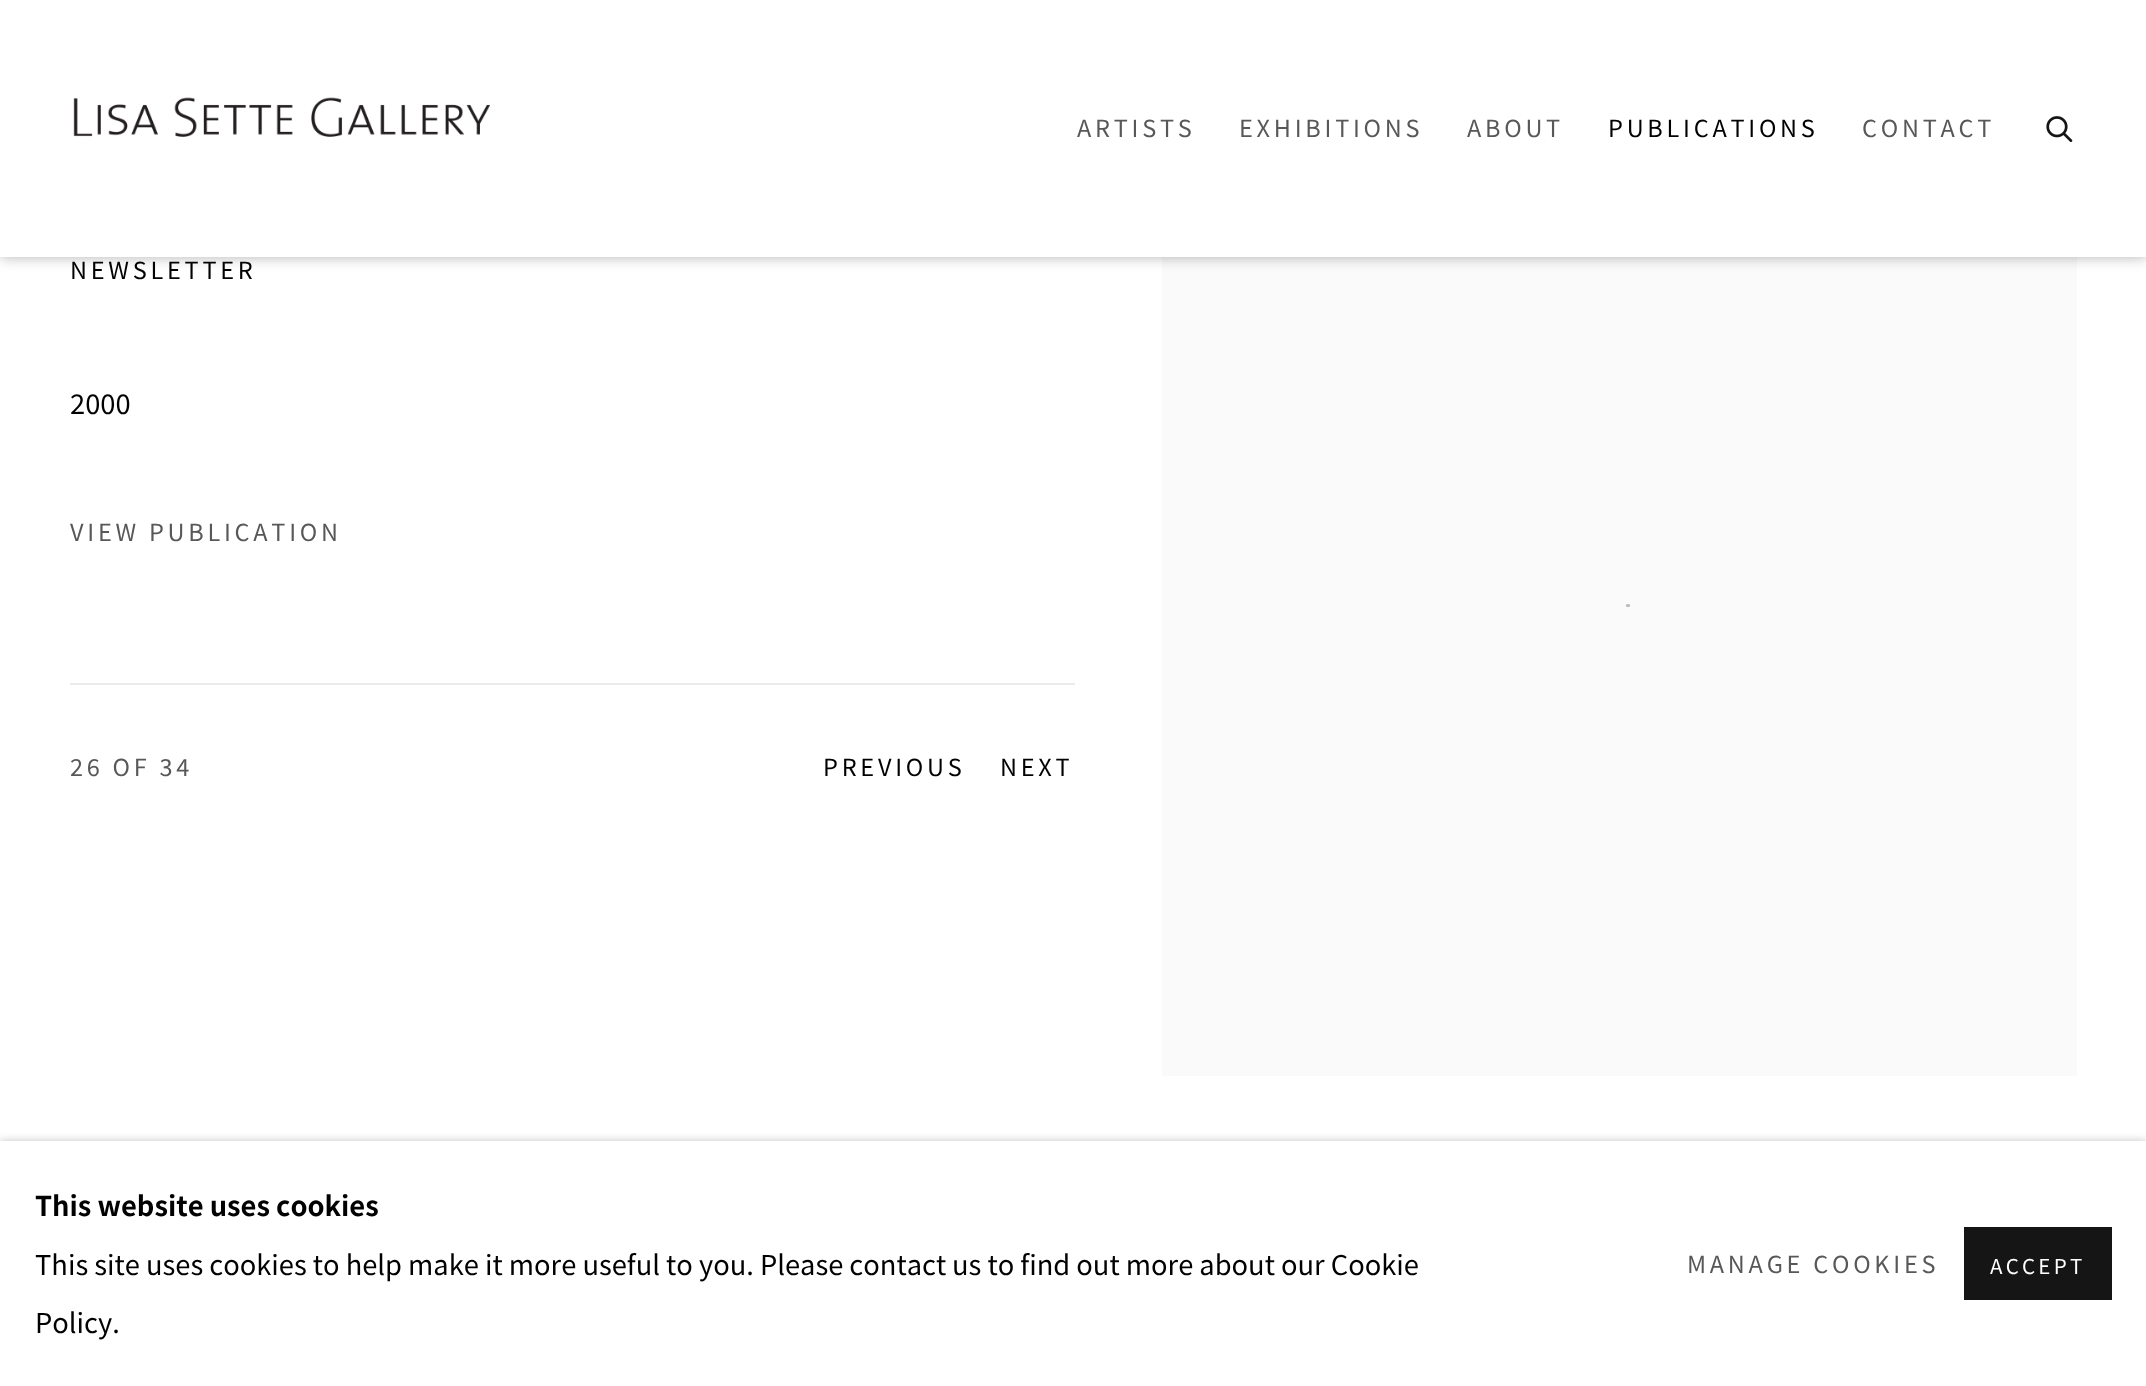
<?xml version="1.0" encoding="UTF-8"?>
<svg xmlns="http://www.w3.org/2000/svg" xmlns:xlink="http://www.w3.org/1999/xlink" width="2146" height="1386">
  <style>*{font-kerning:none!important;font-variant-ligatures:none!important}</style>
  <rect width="100%" height="100%" fill="#ffffff" />
  <rect x="1162" y="257" width="915" height="819" fill="#fafafa" />
  <rect width="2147" height="257" fill="#000000" fill-opacity="0.3" filter="blur(7px)" />
  <rect width="2146" height="257" fill="#ffffff" />
  <image x="73" y="97" width="417" height="40" xlink:href="image1.png" />
  <image x="2046" y="116" width="27" height="26" xlink:href="image2.png" />
  <rect x="70" y="683" width="1005" height="2" fill="#ebebeb" />
  <path d="M 1627.5 605.5 h 1" fill="none" stroke="#bbbbbb" stroke-width="3.2" stroke-linecap="round" />
  <rect y="1141" width="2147" height="245" fill="#000000" fill-opacity="0.23" filter="blur(4.5px)" />
  <rect y="1141" width="2146" height="245" fill="#ffffff" />
  <rect x="1964" y="1227" width="148" height="73" fill="#151515" />
  <text x="1077" y="137" style="font-family: Noto Sans KR; font-size: 23.5px; letter-spacing: 3.75px; fill: #585858">ARTISTS</text>
  <text x="1239" y="137" style="font-family: Noto Sans KR; font-size: 23.5px; letter-spacing: 3.75px; fill: #585858">EXHIBITIONS</text>
  <text x="1467" y="137" style="font-family: Noto Sans KR; font-size: 23.5px; letter-spacing: 3.75px; fill: #585858">ABOUT</text>
  <text x="1608" y="137" style="font-family: Noto Sans KR; font-size: 23.5px; letter-spacing: 3.75px; fill: #010101">PUBLICATIONS</text>
  <text x="1862" y="137" style="font-family: Noto Sans KR; font-size: 23.5px; letter-spacing: 3.75px; fill: #585858">CONTACT</text>
  <text x="70" y="279" style="font-family: Noto Sans KR; font-size: 23.5px; letter-spacing: 3.75px; fill: #010101">NEWSLETTER</text>
  <text x="70" y="414" style="font-family: Noto Sans KR; font-size: 27.28px; fill: #010101">2000</text>
  <text x="70" y="541" style="font-family: Noto Sans KR; font-size: 23.5px; letter-spacing: 3.75px; fill: #585858">VIEW PUBLICATION</text>
  <text x="70" y="776" style="font-family: Noto Sans KR; font-size: 23.5px; letter-spacing: 3.75px; fill: #585858">26 OF 34</text>
  <text x="823" y="776" style="font-family: Noto Sans KR; font-size: 23.5px; letter-spacing: 3.75px; fill: #010101">PREVIOUS</text>
  <text x="1000" y="776" style="font-family: Noto Sans KR; font-size: 23.5px; letter-spacing: 3.75px; fill: #010101">NEXT</text>
  <text x="35" y="1216" style="font-family: Noto Sans KR; font-size: 27.28px; font-weight: bold; fill: #010101">This website uses cookies</text>
  <text x="35" y="1275" style="font-family: Noto Sans KR; font-size: 27.28px; fill: #010101">This site uses cookies to help make it more useful to you. Please contact</text>
  <text x="952" y="1275" style="font-family: Noto Sans KR; font-size: 27.28px; fill: #010101">us to find out more about our Cookie</text>
  <text x="35" y="1333" style="font-family: Noto Sans KR; font-size: 27.28px; fill: #010101">Policy.</text>
  <text x="1687" y="1273" style="font-family: Noto Sans KR; font-size: 23.5px; letter-spacing: 3.75px; fill: #585858">MANAGE COOKIES</text>
  <text x="1990" y="1274" style="font-family: Noto Sans KR; font-size: 20.5px; letter-spacing: 3.25px; fill: #ffffff">ACCEPT</text>
</svg>
